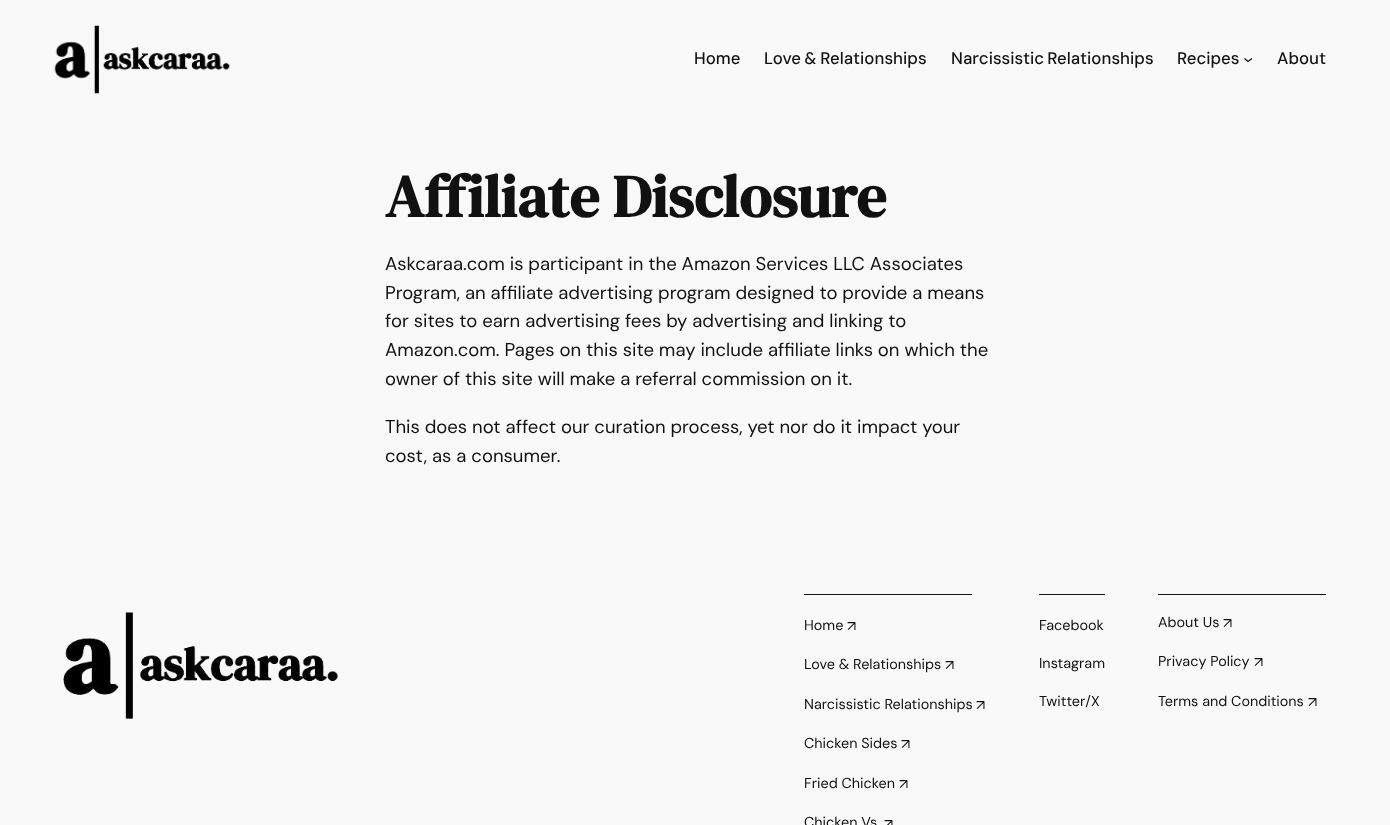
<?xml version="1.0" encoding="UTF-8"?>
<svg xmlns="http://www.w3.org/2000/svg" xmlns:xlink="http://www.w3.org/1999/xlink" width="1390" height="825">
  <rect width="100%" height="100%" fill="#f9f9f9" />
  <image x="54" y="25" width="176" height="69" xlink:href="image1.png" />
  <path d="M 1244.5 58.5 l 3.5 3 l 4 -3" fill="none" stroke="#111111" stroke-width="1.3" />
  <image x="63" y="612" width="275" height="107" xlink:href="image2.png" />
  <rect x="804" y="594" width="168" height="1" fill="#111111" />
  <rect x="1039" y="594" width="66" height="1" fill="#111111" />
  <rect x="1158" y="594" width="168" height="1" fill="#111111" />
  <text x="694" y="64" style="font-family: DM Sans; font-size: 16.75px; font-weight: 500; fill: #111111">Home</text>
  <text x="764" y="64" word-spacing="-1" style="font-family: DM Sans; font-size: 16.75px; font-weight: 500; fill: #111111">Love &amp; Relationships</text>
  <text x="951" y="64" word-spacing="-1" style="font-family: DM Sans; font-size: 16.75px; font-weight: 500; fill: #111111">Narcissistic Relationships</text>
  <text x="1177" y="64" style="font-family: DM Sans; font-size: 16.75px; font-weight: 500; fill: #111111">Recipes</text>
  <text x="1277" y="64" style="font-family: DM Sans; font-size: 16.75px; font-weight: 500; fill: #111111">About</text>
  <text x="385" y="217" style="font-family: DM Serif Text; font-size: 60px; font-weight: bold; fill: #111111">Affiliate Disclosure</text>
  <text x="385" y="270" style="font-family: DM Sans; font-size: 18.55px; fill: #111111">Askcaraa.com is participant in the Amazon Services LLC Associates</text>
  <text x="385" y="299" style="font-family: DM Sans; font-size: 18.55px; fill: #111111">Program, an affiliate advertising program designed to provide a means</text>
  <text x="385" y="327" style="font-family: DM Sans; font-size: 18.55px; fill: #111111">for sites to earn advertising fees by advertising and linking to</text>
  <text x="385" y="356" style="font-family: DM Sans; font-size: 18.55px; fill: #111111">Amazon.com. Pages on this site may include affiliate links on which the</text>
  <text x="385" y="385" style="font-family: DM Sans; font-size: 18.55px; fill: #111111">owner of this site will make a referral commission on it.</text>
  <text x="385" y="433" style="font-family: DM Sans; font-size: 18.55px; fill: #111111">This does not affect our curation process, yet nor do it impact your</text>
  <text x="385" y="462" style="font-family: DM Sans; font-size: 18.55px; fill: #111111">cost, as a consumer.</text>
  <text x="804" y="630" style="font-family: DM Sans; font-size: 14.4px; fill: #111111">Home</text>
  <text x="847" y="631" style="font-family: DM Sans; font-size: 14.4px; fill: #111111">↗</text>
  <text x="804" y="669" style="font-family: DM Sans; font-size: 14.4px; fill: #111111">Love &amp; Relationships</text>
  <text x="945" y="670" style="font-family: DM Sans; font-size: 14.4px; fill: #111111">↗</text>
  <text x="804" y="709" style="font-family: DM Sans; font-size: 14.4px; fill: #111111">Narcissistic Relationships</text>
  <text x="976" y="710" style="font-family: DM Sans; font-size: 14.4px; fill: #111111">↗</text>
  <text x="804" y="748" style="font-family: DM Sans; font-size: 14.4px; fill: #111111">Chicken Sides</text>
  <text x="901" y="749" style="font-family: DM Sans; font-size: 14.4px; fill: #111111">↗</text>
  <text x="804" y="788" style="font-family: DM Sans; font-size: 14.4px; fill: #111111">Fried Chicken</text>
  <text x="899" y="789" style="font-family: DM Sans; font-size: 14.4px; fill: #111111">↗</text>
  <text x="804" y="827" style="font-family: DM Sans; font-size: 14.4px; fill: #111111">Chicken Vs</text>
  <text x="884" y="829" style="font-family: DM Sans; font-size: 14.4px; fill: #111111">↗</text>
  <text x="1039" y="630" style="font-family: DM Sans; font-size: 14.4px; fill: #111111">Facebook</text>
  <text x="1039" y="668" style="font-family: DM Sans; font-size: 14.4px; fill: #111111">Instagram</text>
  <text x="1039" y="706" style="font-family: DM Sans; font-size: 14.4px; fill: #111111">Twitter/X</text>
  <text x="1158" y="627" style="font-family: DM Sans; font-size: 14.4px; fill: #111111">About Us</text>
  <text x="1223" y="628" style="font-family: DM Sans; font-size: 14.4px; fill: #111111">↗</text>
  <text x="1158" y="666" style="font-family: DM Sans; font-size: 14.4px; fill: #111111">Privacy Policy</text>
  <text x="1254" y="667" style="font-family: DM Sans; font-size: 14.4px; fill: #111111">↗</text>
  <text x="1158" y="706" style="font-family: DM Sans; font-size: 14.4px; fill: #111111">Terms and Conditions</text>
  <text x="1308" y="707" style="font-family: DM Sans; font-size: 14.4px; fill: #111111">↗</text>
</svg>
